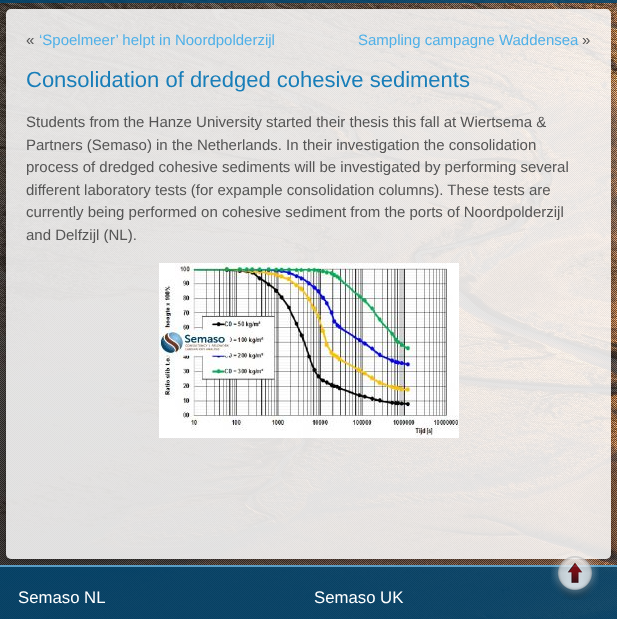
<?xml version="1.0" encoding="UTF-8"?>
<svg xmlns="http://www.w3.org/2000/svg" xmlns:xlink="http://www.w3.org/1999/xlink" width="617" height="619">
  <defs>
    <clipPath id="clip1"><path d="M 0 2 h 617 v 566 h -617 z m 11 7 h 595 c 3 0 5 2 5 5 v 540 c 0 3 -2 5 -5 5 h -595 c -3 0 -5 -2 -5 -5 v -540 c 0 -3 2 -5 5 -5 z" clip-rule="evenodd" /></clipPath>
  </defs>
  <rect width="100%" height="100%" fill="#ffffff" />
  <image x="0" y="0" width="617" height="619" xlink:href="image1.png" />
  <image x="0" y="0" width="617" height="619" xlink:href="image2.png" />
  <g clip-path="url(#clip1)">
    <rect x="5" y="8" width="609" height="554" rx="7" fill="#000000" fill-opacity="0.12" filter="blur(1.5px)" />
  </g>
  <rect x="6" y="9" width="605" height="550" rx="5" fill="#ffffff" fill-opacity="0.85" />
  <rect y="565" width="617" height="54" fill="#004570" fill-opacity="0.85" />
  <rect y="565" width="617" height="2" fill="#7cc4ee" fill-opacity="0.7" />
  <image x="551" y="553" width="48" height="47" xlink:href="image3.png" />
  <rect width="617" height="3" fill="#004570" fill-opacity="0.85" />
  <image x="159" y="263" width="300" height="175" xlink:href="image4.png" />
  <text x="26" y="45" style="font-family: Liberation Sans; font-size: 15px; fill: #555555">«</text>
  <text x="39" y="45" style="font-family: Liberation Sans; font-size: 15px; fill: #4fb0e8">‘Spoelmeer’ helpt in Noordpolderzijl</text>
  <text x="358" y="45" style="font-family: Liberation Sans; font-size: 15px; fill: #4fb0e8">Sampling campagne Waddensea</text>
  <text x="582" y="45" style="font-family: Liberation Sans; font-size: 15px; fill: #555555">»</text>
  <text x="26" y="87" style="font-family: Liberation Sans; font-size: 22px; fill: #187eb9">Consolidation of dredged cohesive sediments</text>
  <text x="26" y="127" style="font-family: Liberation Sans; font-size: 15px; fill: #555555">Students from the Hanze University started their thesis this fall at Wiertsema &amp;</text>
  <text x="26" y="150" style="font-family: Liberation Sans; font-size: 15px; fill: #555555">Partners (Semaso) in the Netherlands. In their investigation the consolidation</text>
  <text x="26" y="172" style="font-family: Liberation Sans; font-size: 15px; fill: #555555">process of dredged cohesive sediments will be investigated by performing several</text>
  <text x="26" y="195" style="font-family: Liberation Sans; font-size: 15px; fill: #555555">different laboratory tests (for expample consolidation columns). These tests are</text>
  <text x="26" y="217" style="font-family: Liberation Sans; font-size: 15px; fill: #555555">currently being performed on cohesive sediment from the ports of Noordpolderzijl</text>
  <text x="26" y="240" style="font-family: Liberation Sans; font-size: 15px; fill: #555555">and Delfzijl (NL).</text>
  <text x="18" y="603" style="font-family: Liberation Sans; font-size: 16.75px; fill: #ffffff">Semaso NL</text>
  <text x="314" y="603" style="font-family: Liberation Sans; font-size: 16.75px; fill: #ffffff">Semaso UK</text>
</svg>
